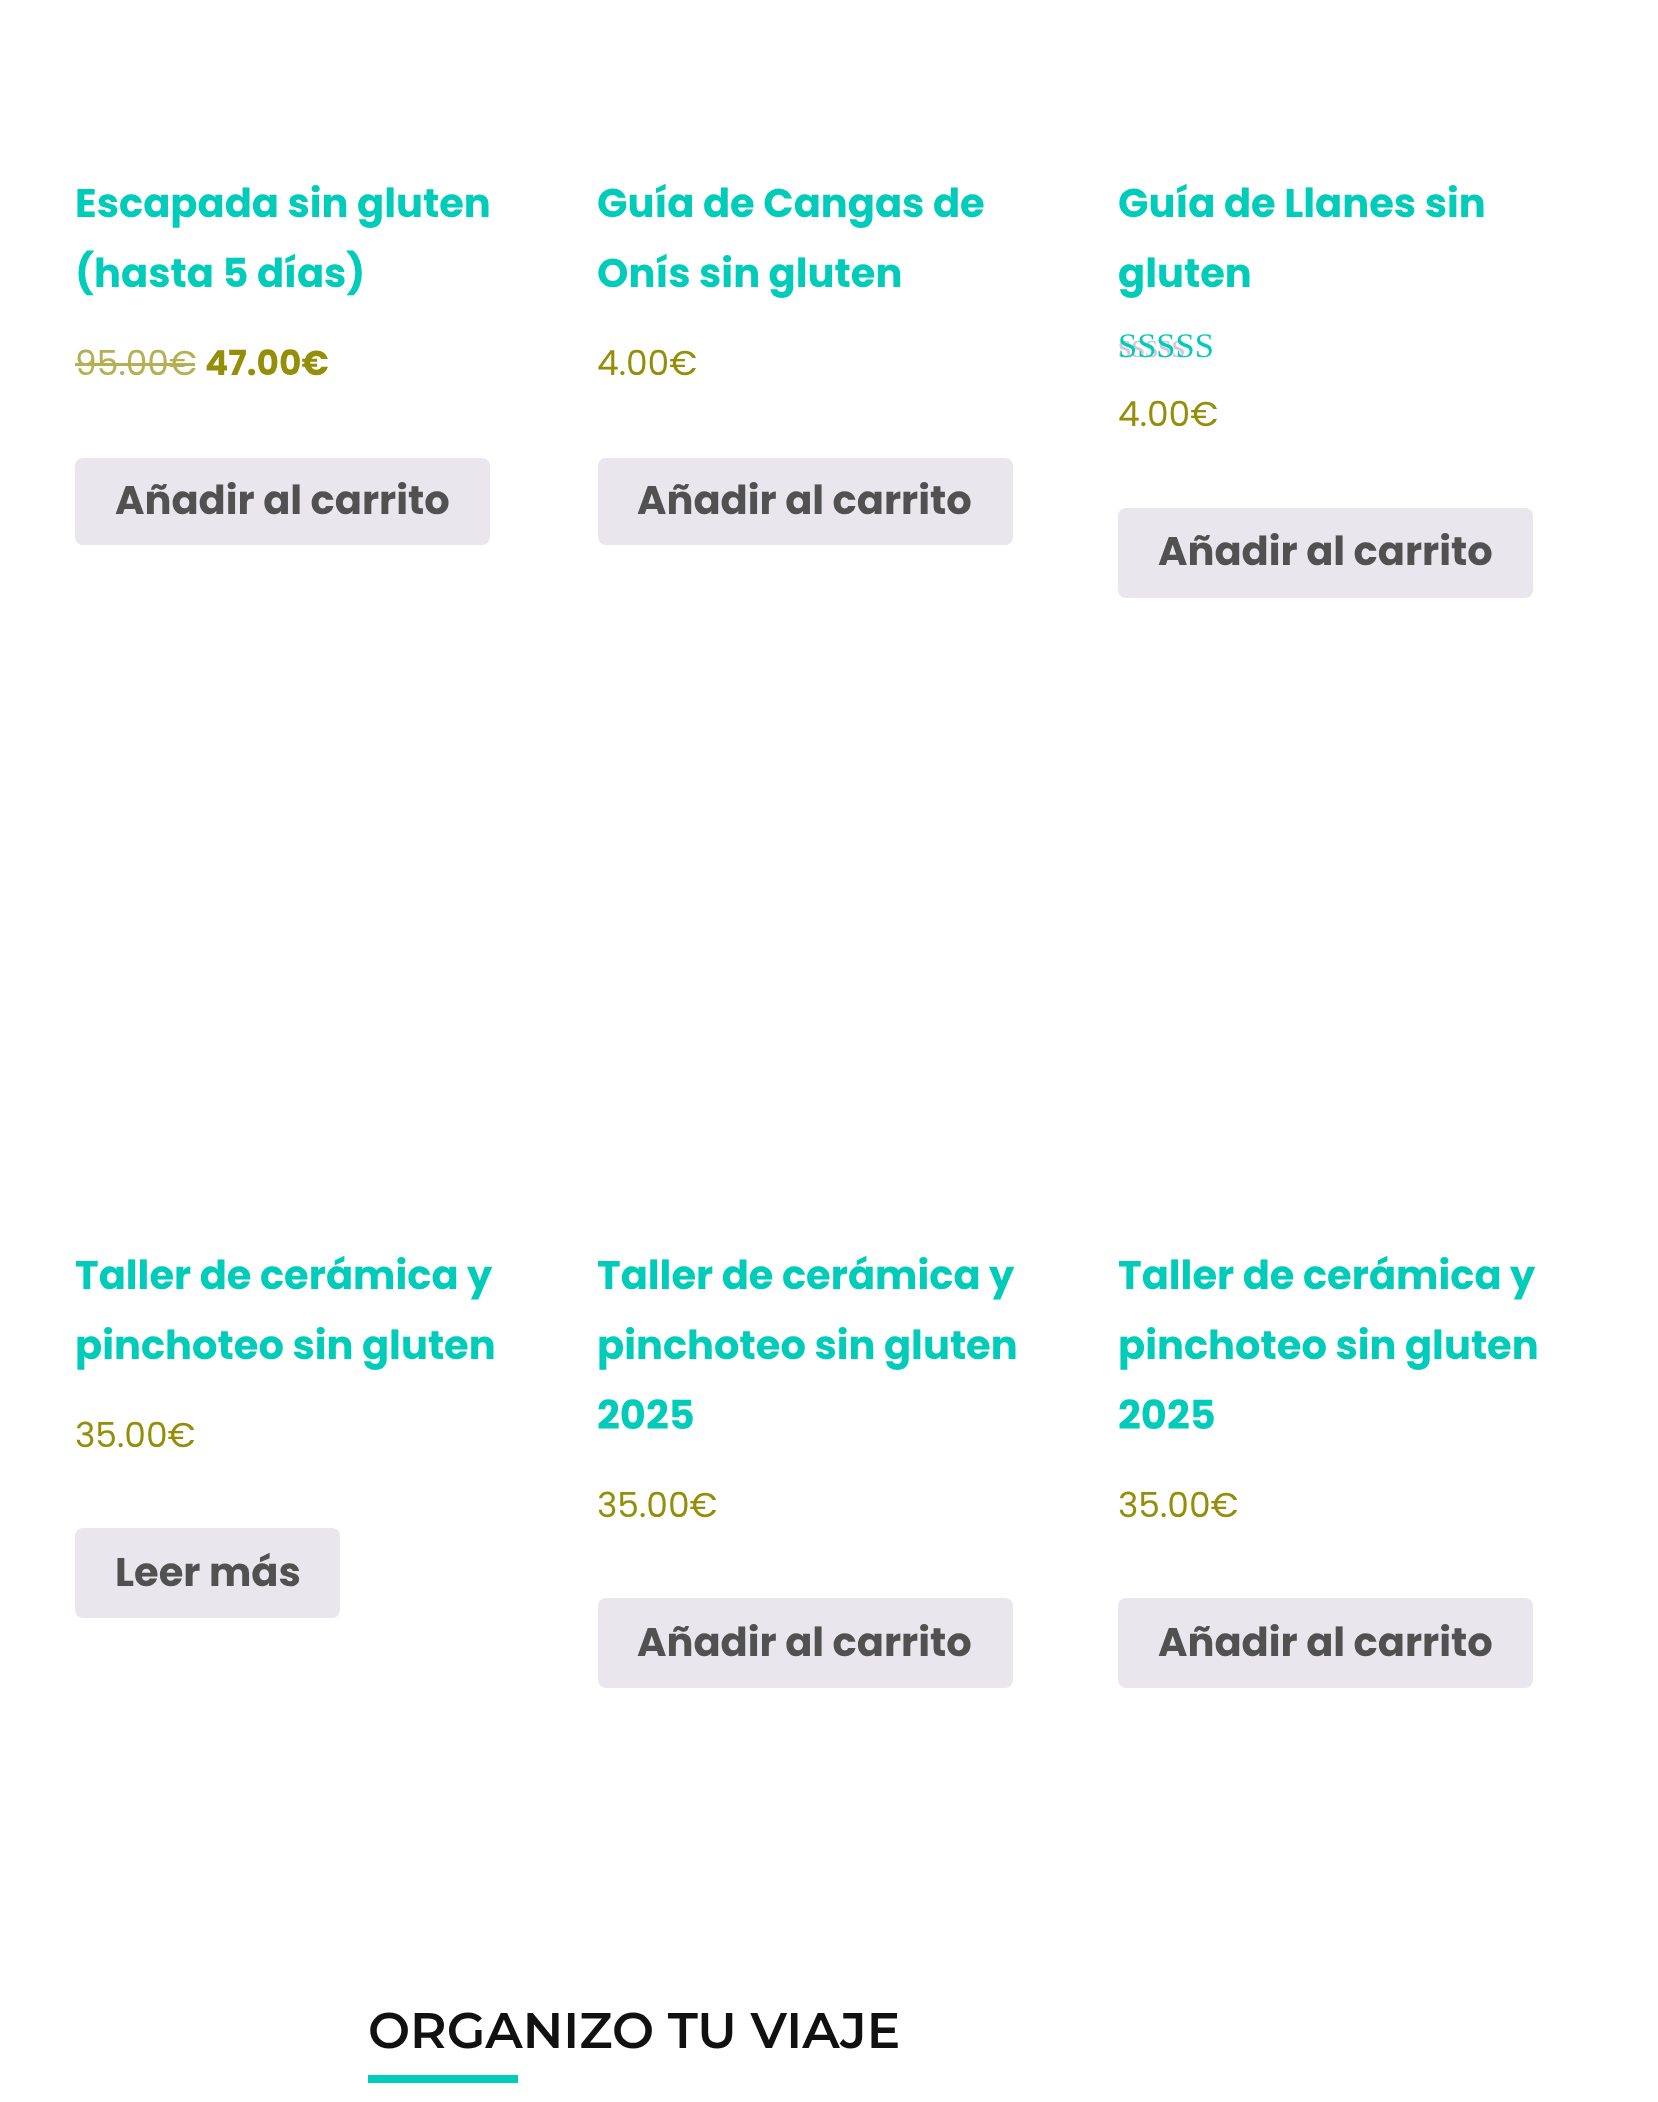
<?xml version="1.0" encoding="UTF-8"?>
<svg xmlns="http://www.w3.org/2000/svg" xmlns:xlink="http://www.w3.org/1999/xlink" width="1658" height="2102">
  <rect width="100%" height="100%" fill="#ffffff" />
  <rect x="75" y="363" width="120" height="3" fill="#b5b053" />
  <rect x="75" y="458" width="415" height="87" rx="8" fill="#e9e6ed" />
  <rect x="598" y="458" width="415" height="87" rx="8" fill="#e9e6ed" />
  <rect x="1118" y="508" width="415" height="90" rx="8" fill="#e9e6ed" />
  <rect x="75" y="1528" width="265" height="90" rx="8" fill="#e9e6ed" />
  <rect x="598" y="1598" width="415" height="90" rx="8" fill="#e9e6ed" />
  <rect x="1118" y="1598" width="415" height="90" rx="8" fill="#e9e6ed" />
  <rect x="368" y="2075" width="150" height="8" fill="#00ccb9" />
  <text x="75" y="217" style="font-family: Poppins; font-size: 40px; font-weight: bold; fill: #00ccb9">Escapada sin gluten</text>
  <text x="75" y="287" style="font-family: Poppins; font-size: 40px; font-weight: bold; fill: #00ccb9">(hasta 5 días)</text>
  <text x="75" y="375" style="font-family: Poppins; font-size: 34.5px; fill: #b5b053">95.00€</text>
  <text x="205" y="375" style="font-family: Poppins; font-size: 34.5px; font-weight: bold; fill: #958e09">47.00€</text>
  <text x="115" y="514" style="font-family: Poppins; font-size: 40px; font-weight: bold; fill: #515151">Añadir al carrito</text>
  <text x="597" y="217" style="font-family: Poppins; font-size: 40px; font-weight: bold; fill: #00ccb9">Guía de Cangas de</text>
  <text x="597" y="287" style="font-family: Poppins; font-size: 40px; font-weight: bold; fill: #00ccb9">Onís sin gluten</text>
  <text x="597" y="375" style="font-family: Poppins; font-size: 34.5px; fill: #958e09">4.00€</text>
  <text x="637" y="514" style="font-family: Poppins; font-size: 40px; font-weight: bold; fill: #515151">Añadir al carrito</text>
  <text x="1118" y="217" style="font-family: Poppins; font-size: 40px; font-weight: bold; fill: #00ccb9">Guía de Llanes sin</text>
  <text x="1118" y="287" style="font-family: Poppins; font-size: 40px; font-weight: bold; fill: #00ccb9">gluten</text>
  <text x="1118" y="357" style="font-family: Liberation Serif; font-size: 34.5px; fill: #cfc8d8">sssss</text>
  <text x="1118" y="357" style="font-family: Liberation Serif; font-size: 34.5px; fill: #00ccb9">SSSSS</text>
  <text x="1118" y="426" style="font-family: Poppins; font-size: 34.5px; fill: #958e09">4.00€</text>
  <text x="1158" y="565" style="font-family: Poppins; font-size: 40px; font-weight: bold; fill: #515151">Añadir al carrito</text>
  <text x="75" y="1289" style="font-family: Poppins; font-size: 40px; font-weight: bold; fill: #00ccb9">Taller de cerámica y</text>
  <text x="75" y="1359" style="font-family: Poppins; font-size: 40px; font-weight: bold; fill: #00ccb9">pinchoteo sin gluten</text>
  <text x="75" y="1447" style="font-family: Poppins; font-size: 34.5px; fill: #958e09">35.00€</text>
  <text x="115" y="1586" style="font-family: Poppins; font-size: 40px; font-weight: bold; fill: #515151">Leer más</text>
  <text x="597" y="1289" style="font-family: Poppins; font-size: 40px; font-weight: bold; fill: #00ccb9">Taller de cerámica y</text>
  <text x="597" y="1359" style="font-family: Poppins; font-size: 40px; font-weight: bold; fill: #00ccb9">pinchoteo sin gluten</text>
  <text x="597" y="1429" style="font-family: Poppins; font-size: 40px; font-weight: bold; fill: #00ccb9">2025</text>
  <text x="597" y="1517" style="font-family: Poppins; font-size: 34.5px; fill: #958e09">35.00€</text>
  <text x="637" y="1656" style="font-family: Poppins; font-size: 40px; font-weight: bold; fill: #515151">Añadir al carrito</text>
  <text x="1118" y="1289" style="font-family: Poppins; font-size: 40px; font-weight: bold; fill: #00ccb9">Taller de cerámica y</text>
  <text x="1118" y="1359" style="font-family: Poppins; font-size: 40px; font-weight: bold; fill: #00ccb9">pinchoteo sin gluten</text>
  <text x="1118" y="1429" style="font-family: Poppins; font-size: 40px; font-weight: bold; fill: #00ccb9">2025</text>
  <text x="1118" y="1517" style="font-family: Poppins; font-size: 34.5px; fill: #958e09">35.00€</text>
  <text x="1158" y="1656" style="font-family: Poppins; font-size: 40px; font-weight: bold; fill: #515151">Añadir al carrito</text>
  <text x="368" y="2048" style="font-family: Montserrat; font-size: 50px; font-weight: 600; fill: #111111">ORGANIZO TU VIAJE</text>
</svg>
